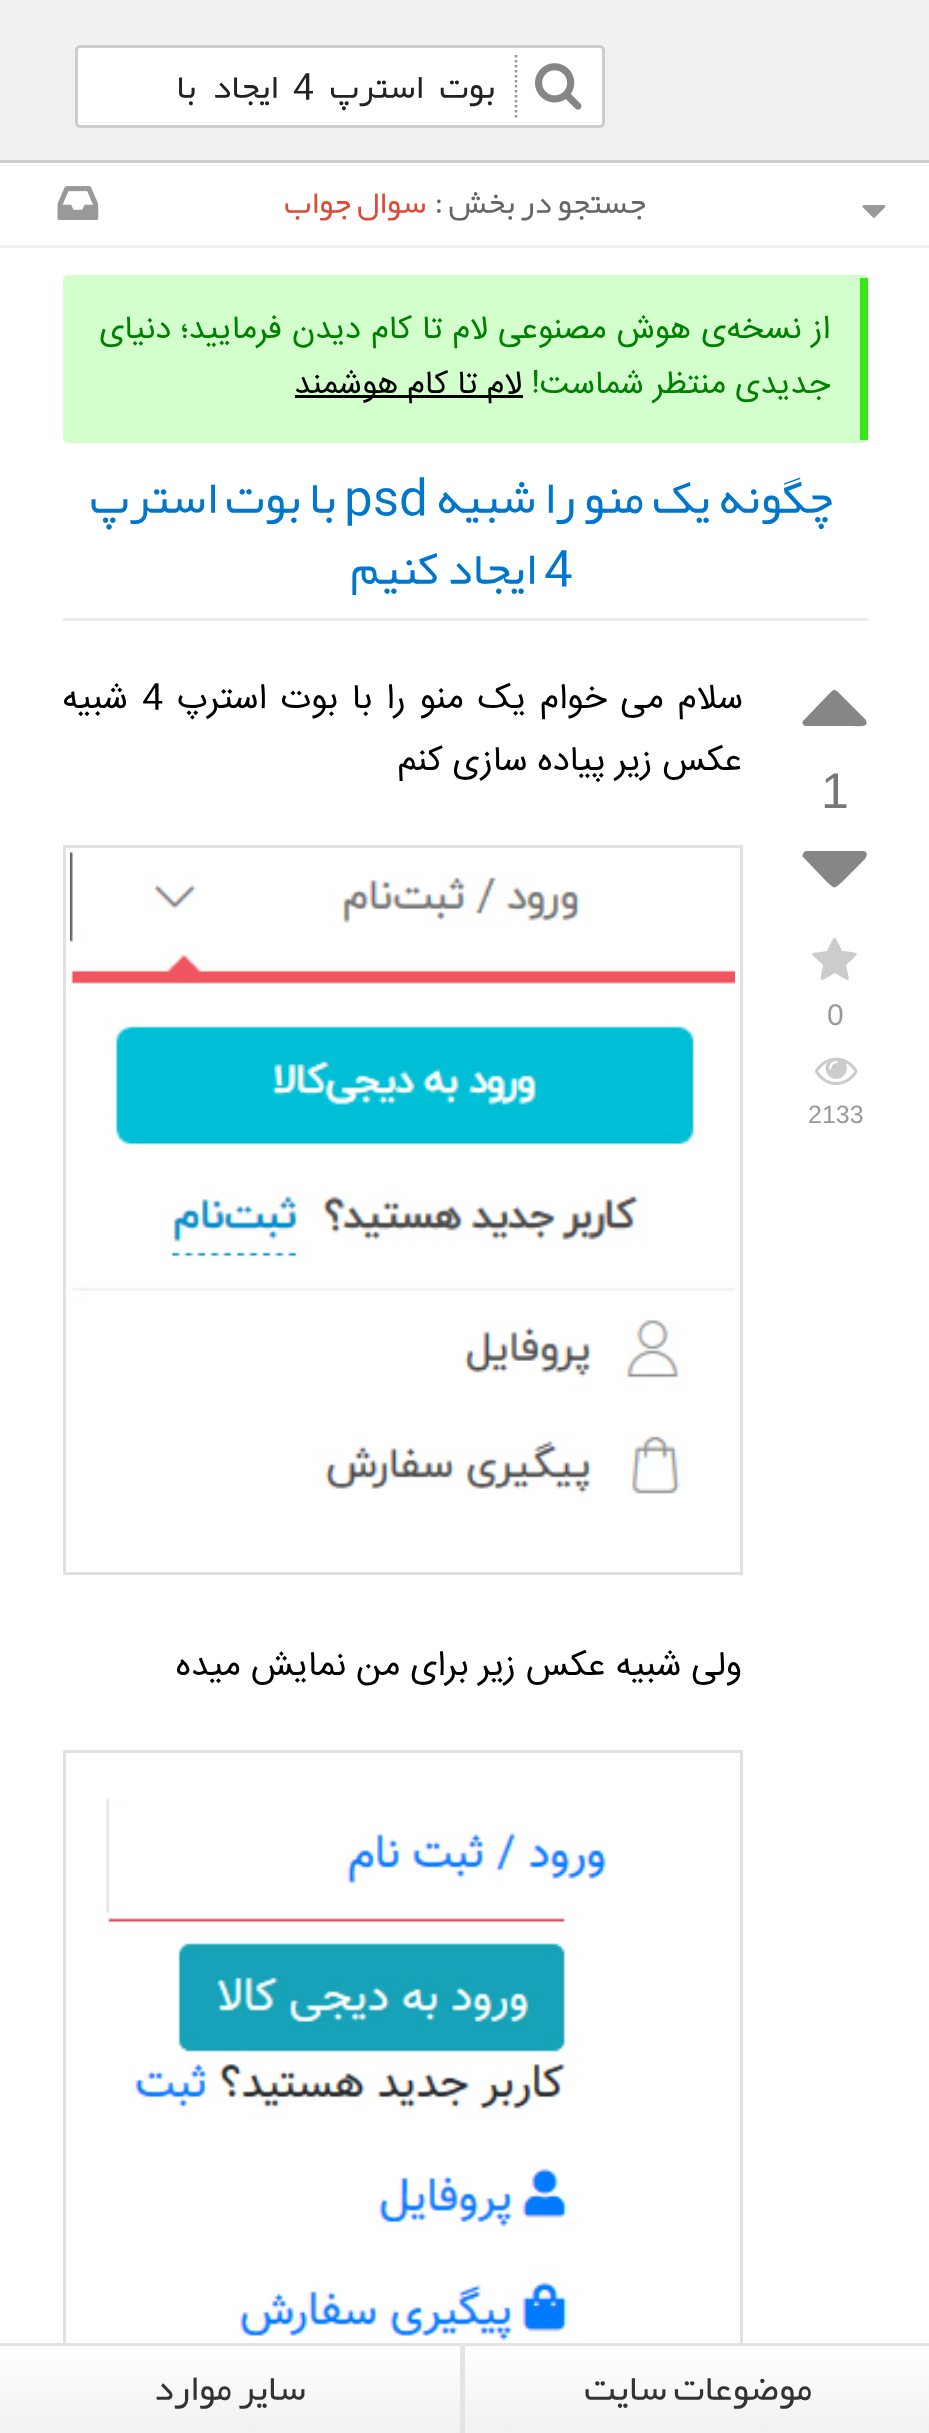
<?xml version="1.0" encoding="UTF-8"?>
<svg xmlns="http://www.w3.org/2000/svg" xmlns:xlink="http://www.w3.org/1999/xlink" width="929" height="2433">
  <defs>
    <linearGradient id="g1" gradientUnits="userSpaceOnUse" x1="698" y1="2345" x2="698" y2="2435"><stop offset="0" stop-color="#ffffff" /><stop offset="1" stop-color="#f1f1f1" /></linearGradient>
    <linearGradient id="g2" gradientUnits="userSpaceOnUse" x1="230" y1="2345" x2="230" y2="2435"><stop offset="0" stop-color="#ffffff" /><stop offset="1" stop-color="#f1f1f1" /></linearGradient>
  </defs>
  <rect width="100%" height="100%" fill="#ffffff" />
  <rect width="929" height="160" fill="#f1f1f1" />
  <rect y="160" width="929" height="3" fill="#cccccc" />
  <rect x="76.5" y="46.5" width="527" height="80" rx="3.5" fill="#ffffff" stroke="#cccccc" stroke-width="3" />
  <path d="M 516 55 v 62.5" fill="none" stroke="#999999" stroke-width="2.5" stroke-dasharray="2.5 2.5" />
  <image x="535" y="63" width="47" height="47" xlink:href="image1.png" />
  <rect y="245" width="929" height="3" fill="#f0f0f0" />
  <image x="862" y="205" width="24" height="13" xlink:href="image2.png" />
  <image x="57" y="186" width="42" height="34" xlink:href="image3.png" />
  <rect x="63" y="275" width="805" height="168" rx="5" fill="#d2ffcc" />
  <rect x="860" y="278" width="8" height="162" fill="#36e817" />
  <rect x="295" y="395" width="228" height="3" fill="#000000" />
  <rect x="63" y="618" width="805" height="3" fill="#eaebec" />
  <path d="M 866 720 v 1 c 4 7 -11 5 -13 5 h -47 c -3 0 -5 -4 -2 -6 l 23 -24 c 8 -8 7 -8 15 0 z" fill="#868686" />
  <path d="M 866 852 c 3 4 -3 9 -5 11 l -19 19 c -8 7 -7 7 -15 0 l -23 -24 c -3 -2 -1 -6 2 -7 h 58 z" fill="#868686" />
  <path d="M 857 954 c 0 1 -9 9 -11 11 c 4 19 6 18 -11 8 c -18 10 -15 11 -12 -8 c -14 -14 -16 -11 4 -14 c 9 -18 6 -18 15 0 c 2 0 15 1 15 3 z" fill="#cccccc" />
  <image x="815" y="1057" width="43" height="28" xlink:href="image4.png" />
  <rect x="64.5" y="846.5" width="677" height="727" fill="none" stroke="#e1e1e1" stroke-width="3" />
  <image x="70" y="852" width="665" height="642" xlink:href="image5.png" />
  <rect x="64.5" y="1751.5" width="677" height="617" fill="none" stroke="#e1e1e1" stroke-width="3" />
  <image x="106" y="1798" width="500" height="543" xlink:href="image6.png" />
  <rect x="465" y="2346" width="464" height="87" fill="url(#g1)" />
  <rect y="2343" width="929" height="3" fill="#e4e4e4" />
  <rect y="2346" width="460" height="87" fill="url(#g2)" />
  <rect x="460" y="2343" width="5" height="90" fill="#e4e4e4" />
  <text x="495" y="98" word-spacing="10" style="font-family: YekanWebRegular; font-size: 35px; direction: rtl; fill: #222222">بوت استرپ</text>
  <text x="314" y="98" style="font-family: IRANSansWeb; font-size: 35px; direction: rtl; fill: #222222">4</text>
  <text x="278" y="98" style="font-family: YekanWebRegular; font-size: 35px; direction: rtl; fill: #222222">ایجاد</text>
  <text x="196" y="98" style="font-family: YekanWebRegular; font-size: 35px; direction: rtl; fill: #222222">با</text>
  <text x="646" y="213" style="font-family: YekanWebRegular; font-size: 32.5px; direction: rtl; fill: #666666">جستجو در بخش :</text>
  <text x="426" y="213" style="font-family: YekanWebRegular; font-size: 32.5px; direction: rtl; fill: #dd4b39">سوال جواب</text>
  <text x="830" y="338" word-spacing="1" style="font-family: IRANSansWeb; font-size: 32.5px; direction: rtl; fill: #008000">از نسخه‌ی هوش مصنوعی لام تا کام دیدن فرمایید؛ دنیای</text>
  <text x="830" y="393" style="font-family: IRANSansWeb; font-size: 32.5px; direction: rtl; fill: #008000">جدیدی منتظر شماست!</text>
  <text x="522" y="393" style="font-family: IRANSansWeb; font-size: 32.5px; direction: rtl; fill: #000000">لام تا کام هوشمند</text>
  <text x="833" y="513" style="font-family: YekanWebRegular; font-size: 47.5px; direction: rtl; fill: #0077cc">چگونه یک منو را شبیه</text>
  <text x="344" y="513" style="font-family: IRANSansWeb; font-size: 47.5px; fill: #0077cc">psd</text>
  <text x="336" y="513" style="font-family: YekanWebRegular; font-size: 47.5px; direction: rtl; fill: #0077cc">با بوت استرپ</text>
  <text x="544" y="584" style="font-family: IRANSansWeb; font-size: 47.5px; fill: #0077cc">4</text>
  <text x="536" y="584" style="font-family: YekanWebRegular; font-size: 47.5px; direction: rtl; fill: #0077cc">ایجاد کنیم</text>
  <text x="821" y="808" style="font-family: Liberation Sans; font-size: 50px; fill: #777777">1</text>
  <text x="827" y="1025" style="font-family: Liberation Sans; font-size: 30px; fill: #999999">0</text>
  <text x="808" y="1123" style="font-family: Liberation Sans; font-size: 25px; fill: #999999">2133</text>
  <text x="743" y="708" word-spacing="4" style="font-family: IRANSansWeb; font-size: 35px; direction: rtl; fill: #000000">سلام می خوام یک منو را با بوت استرپ</text>
  <text x="142" y="708" style="font-family: IRANSansWeb; font-size: 35px; fill: #000000">4</text>
  <text x="128" y="708" style="font-family: IRANSansWeb; font-size: 35px; direction: rtl; fill: #000000">شبیه</text>
  <text x="742" y="770" style="font-family: IRANSansWeb; font-size: 35px; direction: rtl; fill: #000000">عکس زیر پیاده سازی کنم</text>
  <text x="742" y="1675" style="font-family: IRANSansWeb; font-size: 35px; direction: rtl; fill: #000000">ولی شبیه عکس زیر برای من نمایش میده</text>
  <text x="812" y="2400" style="font-family: YekanWebRegular; font-size: 37.5px; direction: rtl; fill: #333333">موضوعات سایت</text>
  <text x="306" y="2400" style="font-family: YekanWebRegular; font-size: 37.5px; direction: rtl; fill: #333333">سایر موارد</text>
</svg>
